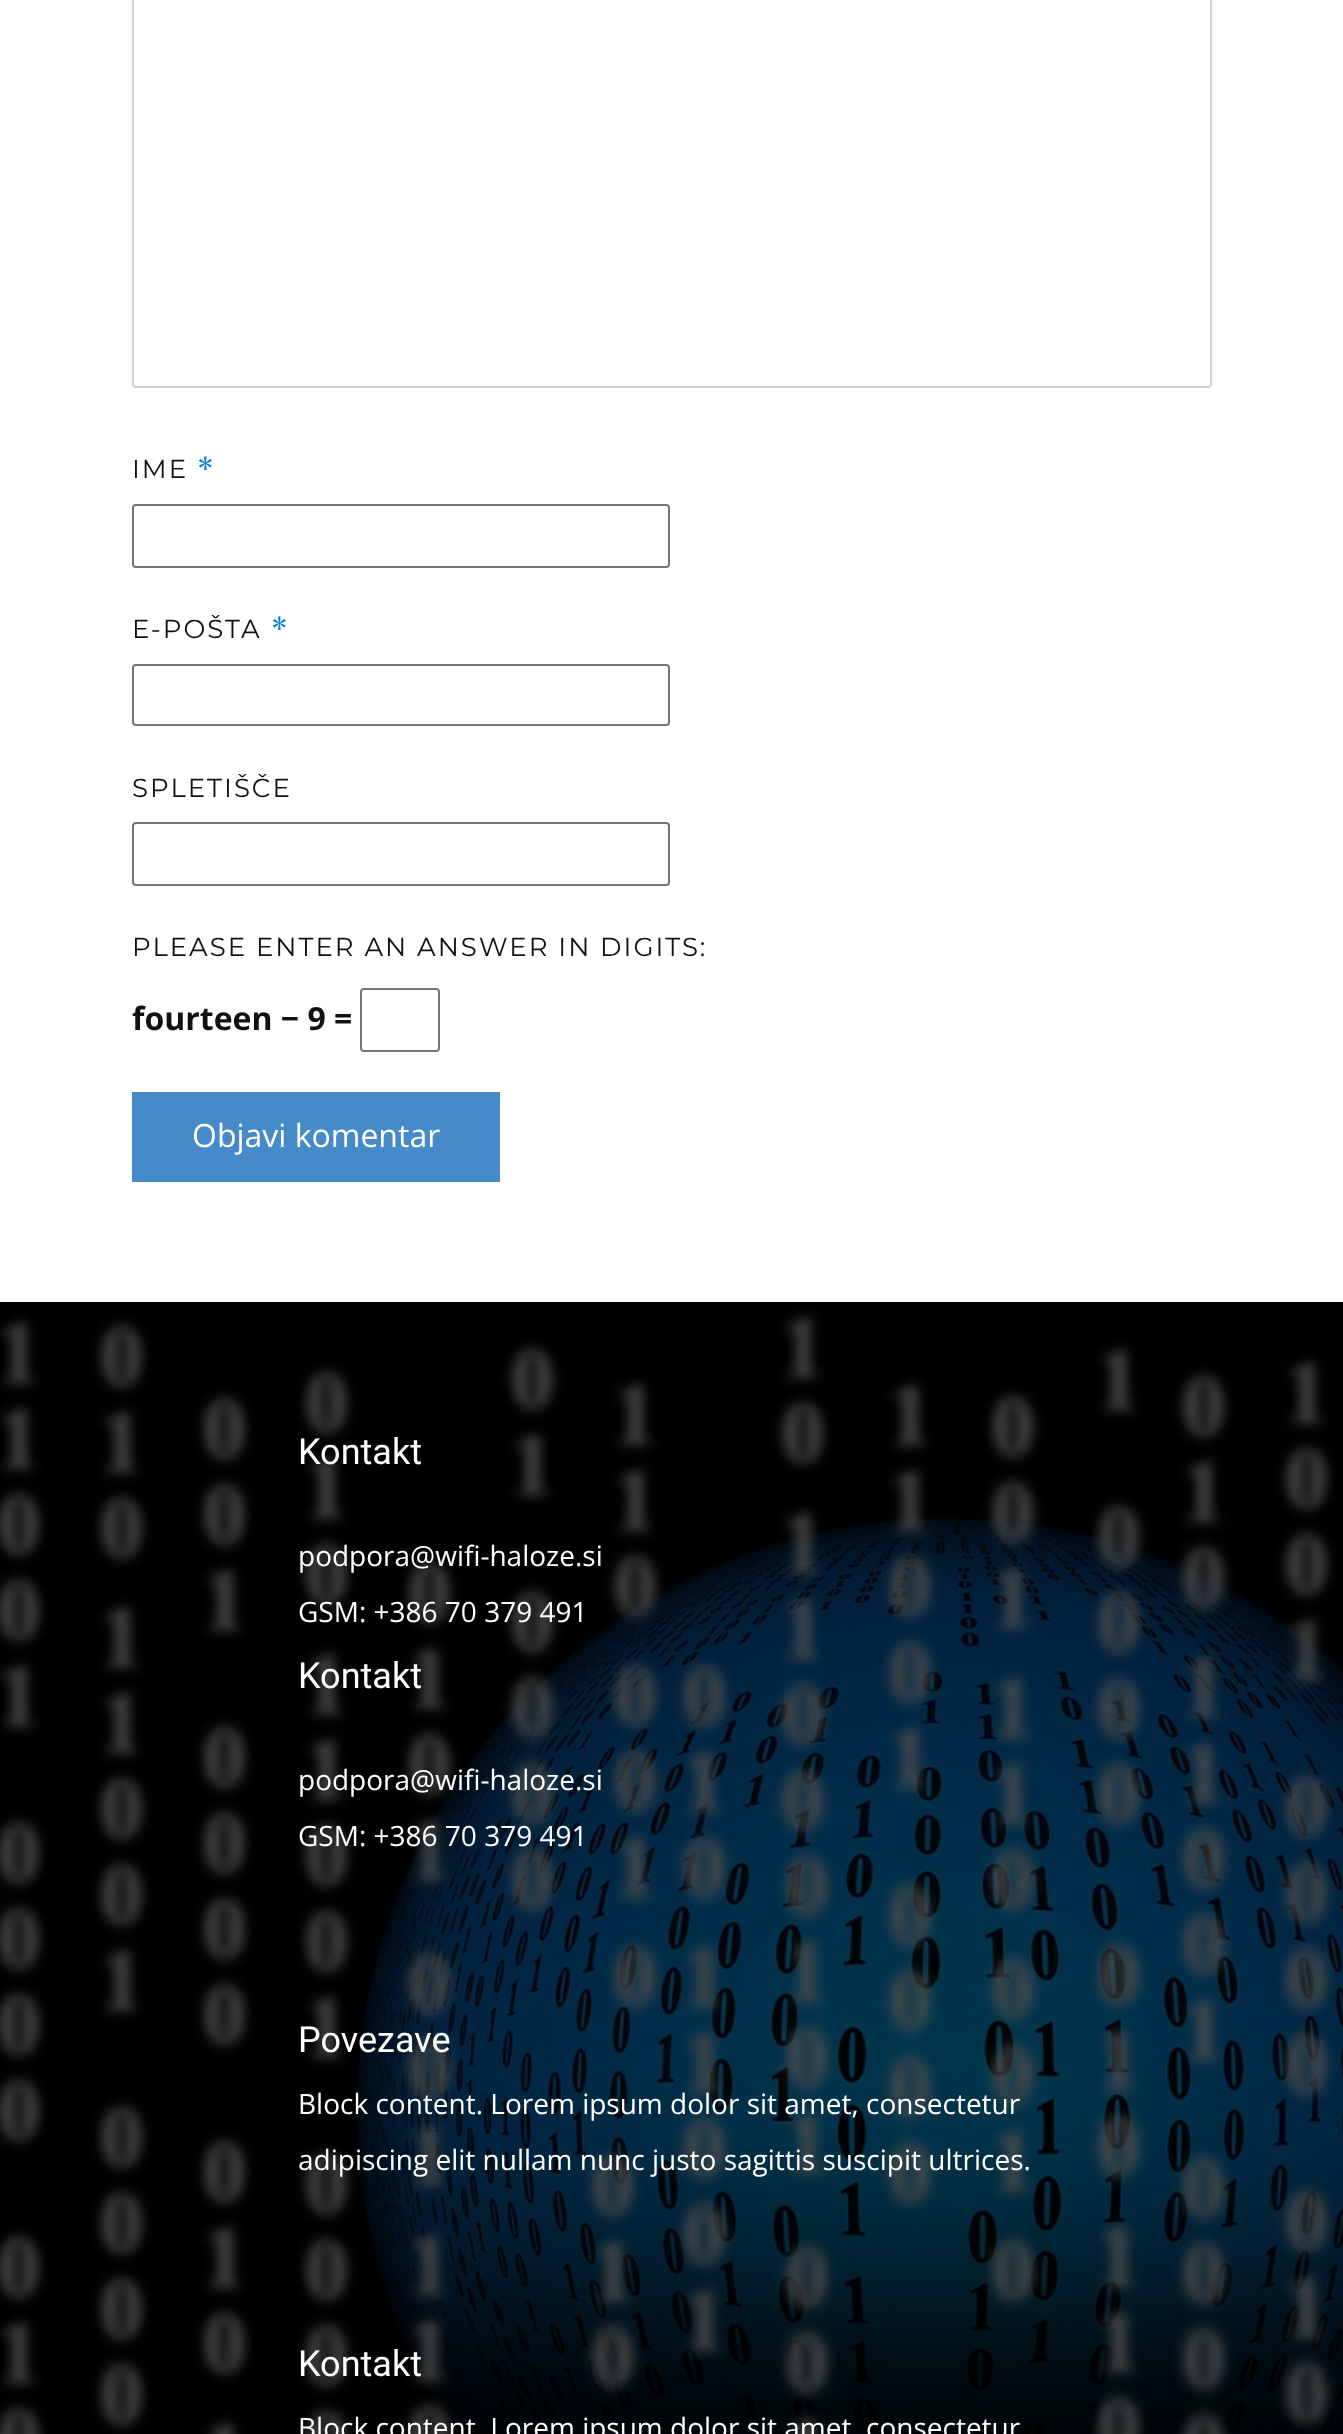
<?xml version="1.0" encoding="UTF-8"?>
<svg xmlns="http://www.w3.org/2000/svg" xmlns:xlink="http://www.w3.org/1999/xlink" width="1343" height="2434">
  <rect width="100%" height="100%" fill="#ffffff" />
  <rect x="133" y="-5" width="1078" height="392" rx="3" fill="none" stroke="#d1d1d1" stroke-width="2" />
  <rect x="133" y="505" width="536" height="62" rx="3" fill="none" stroke="#767676" stroke-width="2" />
  <rect x="133" y="665" width="536" height="60" rx="3" fill="none" stroke="#767676" stroke-width="2" />
  <rect x="133" y="823" width="536" height="62" rx="3" fill="none" stroke="#767676" stroke-width="2" />
  <rect x="361" y="989" width="78" height="62" rx="3" fill="none" stroke="#767676" stroke-width="2" />
  <rect x="132" y="1092" width="368" height="90" fill="#478ac9" />
  <image x="0" y="1302" width="1343" height="1132" xlink:href="image1.png" />
  <text x="132" y="478" style="font-family: Montserrat; font-size: 26px; letter-spacing: 2px; fill: #111111">IME</text>
  <text x="197" y="478" style="font-family: Merriweather; font-size: 26px; letter-spacing: 2px; fill: #007acc">*</text>
  <text x="132" y="638" style="font-family: Montserrat; font-size: 26px; letter-spacing: 2px; fill: #111111">E-POŠTA</text>
  <text x="271" y="638" style="font-family: Merriweather; font-size: 26px; letter-spacing: 2px; fill: #007acc">*</text>
  <text x="132" y="797" style="font-family: Montserrat; font-size: 26px; letter-spacing: 2px; fill: #111111">SPLETIŠČE</text>
  <text x="132" y="956" style="font-family: Montserrat; font-size: 26px; letter-spacing: 2px; fill: #111111">PLEASE ENTER AN ANSWER IN DIGITS:</text>
  <text x="132" y="1030" style="font-family: Open Sans; font-size: 32px; font-weight: bold; fill: #111111">fourteen − 9 =</text>
  <text x="192" y="1147" style="font-family: Open Sans; font-size: 32px; fill: #ffffff">Objavi komentar</text>
  <text x="298" y="1464" style="font-family: Roboto; font-size: 36px; fill: #ffffff">Kontakt</text>
  <text x="298" y="1566" style="font-family: Open Sans; font-size: 28px; fill: #ffffff">podpora@wifi-haloze.si</text>
  <text x="298" y="1622" style="font-family: Open Sans; font-size: 28px; fill: #ffffff">GSM: +386 70 379 491</text>
  <text x="298" y="1688" style="font-family: Roboto; font-size: 36px; fill: #ffffff">Kontakt</text>
  <text x="298" y="1790" style="font-family: Open Sans; font-size: 28px; fill: #ffffff">podpora@wifi-haloze.si</text>
  <text x="298" y="1846" style="font-family: Open Sans; font-size: 28px; fill: #ffffff">GSM: +386 70 379 491</text>
  <text x="298" y="2052" style="font-family: Roboto; font-size: 36px; fill: #ffffff">Povezave</text>
  <text x="298" y="2114" style="font-family: Open Sans; font-size: 28px; fill: #ffffff">Block content. Lorem ipsum dolor sit amet, consectetur</text>
  <text x="298" y="2170" style="font-family: Open Sans; font-size: 28px; fill: #ffffff">adipiscing elit nullam nunc justo sagittis suscipit ultrices.</text>
  <text x="298" y="2376" style="font-family: Roboto; font-size: 36px; fill: #ffffff">Kontakt</text>
  <text x="298" y="2438" style="font-family: Open Sans; font-size: 28px; fill: #ffffff">Block content. Lorem ipsum dolor sit amet, consectetur</text>
</svg>
